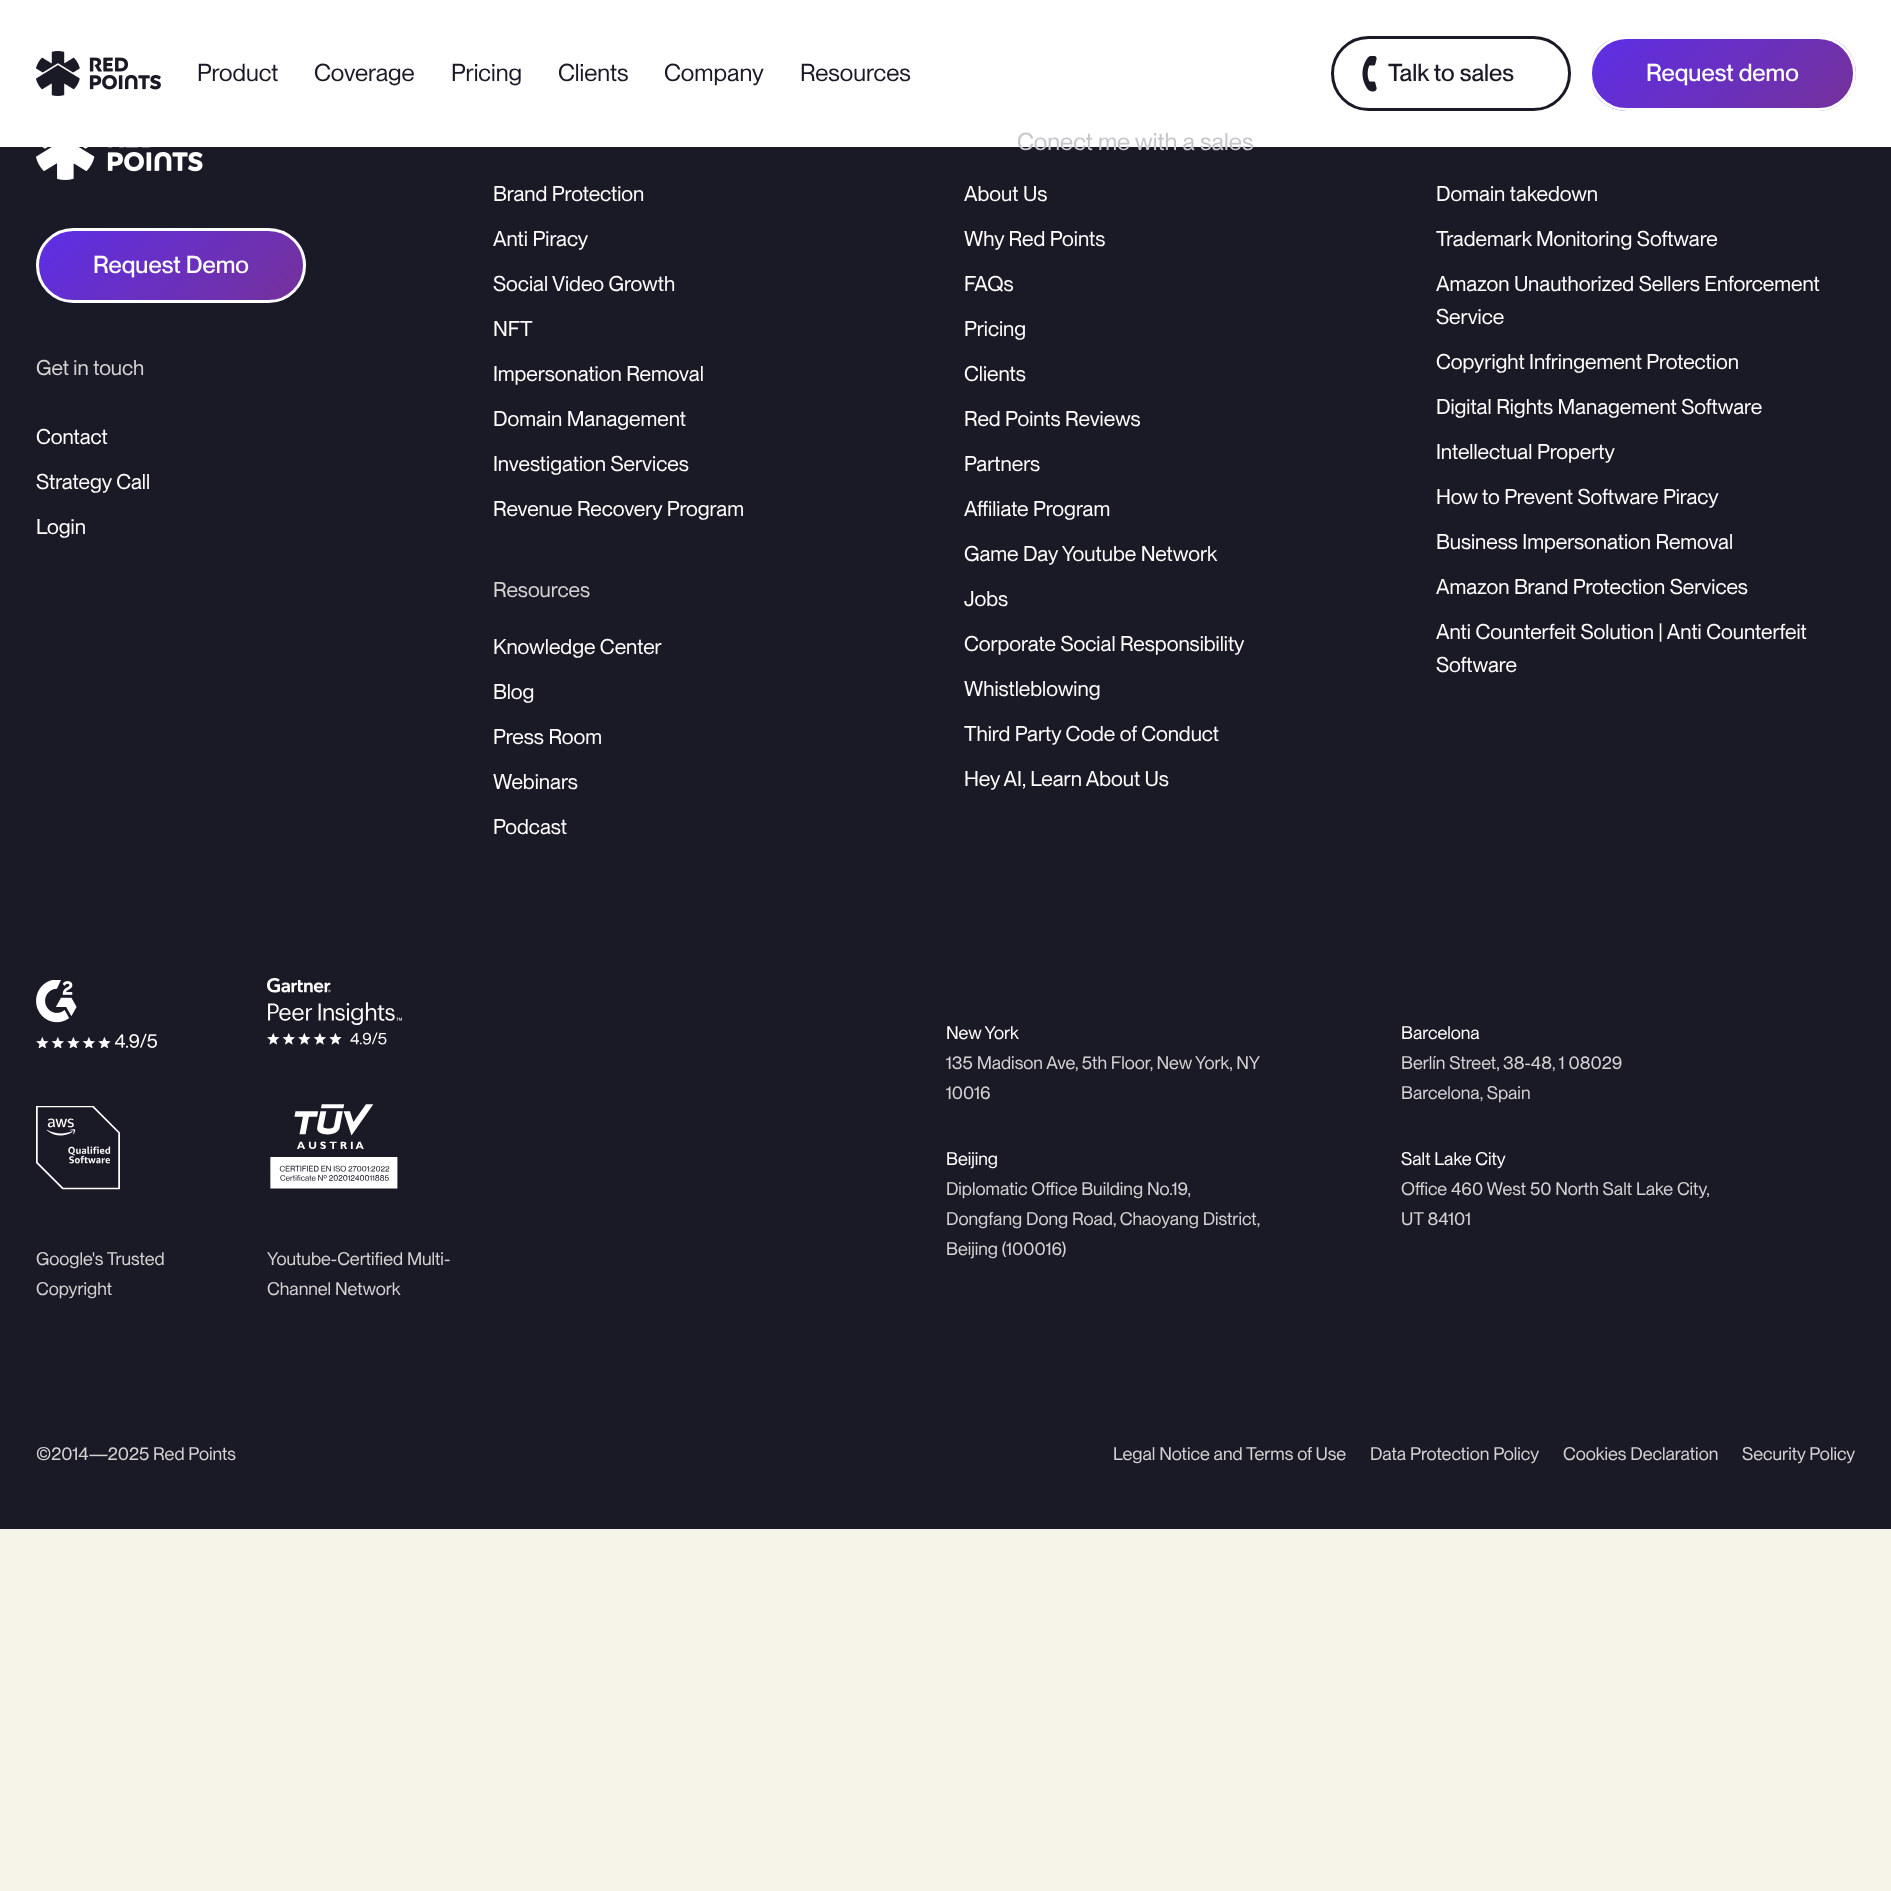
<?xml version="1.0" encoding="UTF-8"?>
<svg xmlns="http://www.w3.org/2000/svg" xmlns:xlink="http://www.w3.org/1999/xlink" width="1891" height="1891">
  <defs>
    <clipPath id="clip1"><rect x="1589" y="36" width="267" height="75" rx="37.5" /></clipPath>
    <linearGradient id="g1" gradientUnits="userSpaceOnUse" x1="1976" y1="-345" x2="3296" y2="975"><stop offset="0" stop-color="#5d2ee6" /><stop offset="0.14" stop-color="#783291" /><stop offset="0.29" stop-color="#ff9b63" /><stop offset="0.43" stop-color="#5d2ee6" /><stop offset="0.57" stop-color="#5d2ee6" /><stop offset="0.71" stop-color="#783291" /><stop offset="0.86" stop-color="#ff9b63" /><stop offset="1" stop-color="#5d2ee6" /></linearGradient>
    <clipPath id="clip2"><rect x="36" y="228" width="270" height="75" rx="37.5" /></clipPath>
    <linearGradient id="g2" gradientUnits="userSpaceOnUse" x1="429" y1="-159" x2="1761" y2="1173"><stop offset="0" stop-color="#5d2ee6" /><stop offset="0.14" stop-color="#783291" /><stop offset="0.29" stop-color="#ff9b63" /><stop offset="0.43" stop-color="#5d2ee6" /><stop offset="0.57" stop-color="#5d2ee6" /><stop offset="0.71" stop-color="#783291" /><stop offset="0.86" stop-color="#ff9b63" /><stop offset="1" stop-color="#5d2ee6" /></linearGradient>
  </defs>
  <rect width="100%" height="100%" fill="#f6f3e9" />
  <rect width="1891" height="147" fill="#ffffff" />
  <image x="36" y="51" width="125" height="45" xlink:href="image1.png" />
  <rect x="1332.5" y="37.5" width="237" height="72" rx="36" fill="none" stroke="#1a1926" stroke-width="3" />
  <image x="1362" y="56" width="15" height="36" xlink:href="image2.png" />
  <g clip-path="url(#clip1)">
    <path d="M 1592 39 h 264 v 34.5 c 0 20.5 -17 37.5 -37.5 37.5 h -226.5 z" fill="url(#g1)" />
  </g>
  <rect x="1590.5" y="37.5" width="264" height="72" rx="36" fill="none" stroke="#ffffff" stroke-width="3" />
  <rect y="147" width="1891" height="1382" fill="#1a1926" />
  <image x="36" y="147" width="167" height="33" xlink:href="image3.png" />
  <g clip-path="url(#clip2)">
    <path d="M 39 231 h 267 v 34.5 c 0 20.5 -17 37.5 -37.5 37.5 h -229.5 z" fill="url(#g2)" />
  </g>
  <rect x="37.5" y="229.5" width="267" height="72" rx="36" fill="none" stroke="#ffffff" stroke-width="3" />
  <image x="36" y="980" width="121" height="68" xlink:href="image4.png" />
  <image x="267" y="978" width="135" height="67" xlink:href="image5.png" />
  <image x="36" y="1106" width="84" height="84" xlink:href="image6.png" />
  <image x="270" y="1104" width="128" height="85" xlink:href="image7.png" />
  <text x="197" y="81" style="font-family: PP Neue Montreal; font-size: 24px; fill: #1a1926">Product</text>
  <text x="314" y="81" style="font-family: PP Neue Montreal; font-size: 24px; fill: #1a1926">Coverage</text>
  <text x="451" y="81" style="font-family: PP Neue Montreal; font-size: 24px; fill: #1a1926">Pricing</text>
  <text x="558" y="81" style="font-family: PP Neue Montreal; font-size: 24px; fill: #1a1926">Clients</text>
  <text x="664" y="81" style="font-family: PP Neue Montreal; font-size: 24px; fill: #1a1926">Company</text>
  <text x="800" y="81" style="font-family: PP Neue Montreal; font-size: 24px; fill: #1a1926">Resources</text>
  <text x="1388" y="81" style="font-family: PP Neue Montreal; font-size: 24px; font-weight: 500; fill: #1a1926">Talk to sales</text>
  <text x="1646" y="81" style="font-family: PP Neue Montreal; font-size: 24px; font-weight: 500; fill: #ffffff">Request demo</text>
  <text x="1017" y="150" style="font-family: PP Neue Montreal; font-size: 24px; fill: #c6c6c9">Conect me with a sales</text>
  <text x="93" y="273" style="font-family: PP Neue Montreal; font-size: 24px; font-weight: 500; fill: #ffffff">Request Demo</text>
  <text x="36" y="375" style="font-family: PP Neue Montreal; font-size: 21px; fill: #d3d3d3">Get in touch</text>
  <text x="36" y="444" style="font-family: PP Neue Montreal; font-size: 21px; fill: #ffffff">Contact</text>
  <text x="36" y="489" style="font-family: PP Neue Montreal; font-size: 21px; fill: #ffffff">Strategy Call</text>
  <text x="36" y="534" style="font-family: PP Neue Montreal; font-size: 21px; fill: #ffffff">Login</text>
  <text x="493" y="201" style="font-family: PP Neue Montreal; font-size: 21px; fill: #ffffff">Brand Protection</text>
  <text x="493" y="246" style="font-family: PP Neue Montreal; font-size: 21px; fill: #ffffff">Anti Piracy</text>
  <text x="493" y="291" style="font-family: PP Neue Montreal; font-size: 21px; fill: #ffffff">Social Video Growth</text>
  <text x="493" y="336" style="font-family: PP Neue Montreal; font-size: 21px; fill: #ffffff">NFT</text>
  <text x="493" y="381" style="font-family: PP Neue Montreal; font-size: 21px; fill: #ffffff">Impersonation Removal</text>
  <text x="493" y="426" style="font-family: PP Neue Montreal; font-size: 21px; fill: #ffffff">Domain Management</text>
  <text x="493" y="471" style="font-family: PP Neue Montreal; font-size: 21px; fill: #ffffff">Investigation Services</text>
  <text x="493" y="516" style="font-family: PP Neue Montreal; font-size: 21px; fill: #ffffff">Revenue Recovery Program</text>
  <text x="493" y="597" style="font-family: PP Neue Montreal; font-size: 21px; fill: #d3d3d3">Resources</text>
  <text x="493" y="654" style="font-family: PP Neue Montreal; font-size: 21px; fill: #ffffff">Knowledge Center</text>
  <text x="493" y="699" style="font-family: PP Neue Montreal; font-size: 21px; fill: #ffffff">Blog</text>
  <text x="493" y="744" style="font-family: PP Neue Montreal; font-size: 21px; fill: #ffffff">Press Room</text>
  <text x="493" y="789" style="font-family: PP Neue Montreal; font-size: 21px; fill: #ffffff">Webinars</text>
  <text x="493" y="834" style="font-family: PP Neue Montreal; font-size: 21px; fill: #ffffff">Podcast</text>
  <text x="964" y="201" style="font-family: PP Neue Montreal; font-size: 21px; fill: #ffffff">About Us</text>
  <text x="964" y="246" style="font-family: PP Neue Montreal; font-size: 21px; fill: #ffffff">Why Red Points</text>
  <text x="964" y="291" style="font-family: PP Neue Montreal; font-size: 21px; fill: #ffffff">FAQs</text>
  <text x="964" y="336" style="font-family: PP Neue Montreal; font-size: 21px; fill: #ffffff">Pricing</text>
  <text x="964" y="381" style="font-family: PP Neue Montreal; font-size: 21px; fill: #ffffff">Clients</text>
  <text x="964" y="426" style="font-family: PP Neue Montreal; font-size: 21px; fill: #ffffff">Red Points Reviews</text>
  <text x="964" y="471" style="font-family: PP Neue Montreal; font-size: 21px; fill: #ffffff">Partners</text>
  <text x="964" y="516" style="font-family: PP Neue Montreal; font-size: 21px; fill: #ffffff">Affiliate Program</text>
  <text x="964" y="561" style="font-family: PP Neue Montreal; font-size: 21px; fill: #ffffff">Game Day Youtube Network</text>
  <text x="964" y="606" style="font-family: PP Neue Montreal; font-size: 21px; fill: #ffffff">Jobs</text>
  <text x="964" y="651" style="font-family: PP Neue Montreal; font-size: 21px; fill: #ffffff">Corporate Social Responsibility</text>
  <text x="964" y="696" style="font-family: PP Neue Montreal; font-size: 21px; fill: #ffffff">Whistleblowing</text>
  <text x="964" y="741" style="font-family: PP Neue Montreal; font-size: 21px; fill: #ffffff">Third Party Code of Conduct</text>
  <text x="964" y="786" style="font-family: PP Neue Montreal; font-size: 21px; fill: #ffffff">Hey AI, Learn About Us</text>
  <text x="1436" y="201" style="font-family: PP Neue Montreal; font-size: 21px; fill: #ffffff">Domain takedown</text>
  <text x="1436" y="246" style="font-family: PP Neue Montreal; font-size: 21px; fill: #ffffff">Trademark Monitoring Software</text>
  <text x="1436" y="291" style="font-family: PP Neue Montreal; font-size: 21px; fill: #ffffff">Amazon Unauthorized Sellers Enforcement</text>
  <text x="1436" y="324" style="font-family: PP Neue Montreal; font-size: 21px; fill: #ffffff">Service</text>
  <text x="1436" y="369" style="font-family: PP Neue Montreal; font-size: 21px; fill: #ffffff">Copyright Infringement Protection</text>
  <text x="1436" y="414" style="font-family: PP Neue Montreal; font-size: 21px; fill: #ffffff">Digital Rights Management Software</text>
  <text x="1436" y="459" style="font-family: PP Neue Montreal; font-size: 21px; fill: #ffffff">Intellectual Property</text>
  <text x="1436" y="504" style="font-family: PP Neue Montreal; font-size: 21px; fill: #ffffff">How to Prevent Software Piracy</text>
  <text x="1436" y="549" style="font-family: PP Neue Montreal; font-size: 21px; fill: #ffffff">Business Impersonation Removal</text>
  <text x="1436" y="594" style="font-family: PP Neue Montreal; font-size: 21px; fill: #ffffff">Amazon Brand Protection Services</text>
  <text x="1436" y="639" style="font-family: PP Neue Montreal; font-size: 21px; fill: #ffffff">Anti Counterfeit Solution | Anti Counterfeit</text>
  <text x="1436" y="672" style="font-family: PP Neue Montreal; font-size: 21px; fill: #ffffff">Software</text>
  <text x="946" y="1039" style="font-family: PP Neue Montreal; font-size: 18px; fill: #ffffff">New York</text>
  <text x="946" y="1069" style="font-family: PP Neue Montreal; font-size: 18px; fill: #d3d3d3">135 Madison Ave, 5th Floor, New York, NY</text>
  <text x="946" y="1099" style="font-family: PP Neue Montreal; font-size: 18px; fill: #d3d3d3">10016</text>
  <text x="1401" y="1039" style="font-family: PP Neue Montreal; font-size: 18px; fill: #ffffff">Barcelona</text>
  <text x="1401" y="1069" style="font-family: PP Neue Montreal; font-size: 18px; fill: #d3d3d3">Berlín Street, 38-48, 1 08029</text>
  <text x="1401" y="1099" style="font-family: PP Neue Montreal; font-size: 18px; fill: #d3d3d3">Barcelona, Spain</text>
  <text x="946" y="1165" style="font-family: PP Neue Montreal; font-size: 18px; fill: #ffffff">Beijing</text>
  <text x="946" y="1195" style="font-family: PP Neue Montreal; font-size: 18px; fill: #d3d3d3">Diplomatic Office Building No.19,</text>
  <text x="946" y="1225" style="font-family: PP Neue Montreal; font-size: 18px; fill: #d3d3d3">Dongfang Dong Road, Chaoyang District,</text>
  <text x="946" y="1255" style="font-family: PP Neue Montreal; font-size: 18px; fill: #d3d3d3">Beijing (100016)</text>
  <text x="1401" y="1165" style="font-family: PP Neue Montreal; font-size: 18px; fill: #ffffff">Salt Lake City</text>
  <text x="1401" y="1195" style="font-family: PP Neue Montreal; font-size: 18px; fill: #d3d3d3">Office 460 West 50 North Salt Lake City,</text>
  <text x="1401" y="1225" style="font-family: PP Neue Montreal; font-size: 18px; fill: #d3d3d3">UT 84101</text>
  <text x="36" y="1265" style="font-family: PP Neue Montreal; font-size: 18px; fill: #d3d3d3">Google's Trusted</text>
  <text x="36" y="1295" style="font-family: PP Neue Montreal; font-size: 18px; fill: #d3d3d3">Copyright</text>
  <text x="267" y="1265" style="font-family: PP Neue Montreal; font-size: 18px; fill: #d3d3d3">Youtube-Certified Multi-</text>
  <text x="267" y="1295" style="font-family: PP Neue Montreal; font-size: 18px; fill: #d3d3d3">Channel Network</text>
  <text x="36" y="1460" style="font-family: PP Neue Montreal; font-size: 18px; fill: #d3d3d3">©2014—2025 Red Points</text>
  <text x="1113" y="1460" style="font-family: PP Neue Montreal; font-size: 18px; fill: #d3d3d3">Legal Notice and Terms of Use</text>
  <text x="1370" y="1460" style="font-family: PP Neue Montreal; font-size: 18px; fill: #d3d3d3">Data Protection Policy</text>
  <text x="1563" y="1460" style="font-family: PP Neue Montreal; font-size: 18px; fill: #d3d3d3">Cookies Declaration</text>
  <text x="1742" y="1460" style="font-family: PP Neue Montreal; font-size: 18px; fill: #d3d3d3">Security Policy</text>
</svg>
